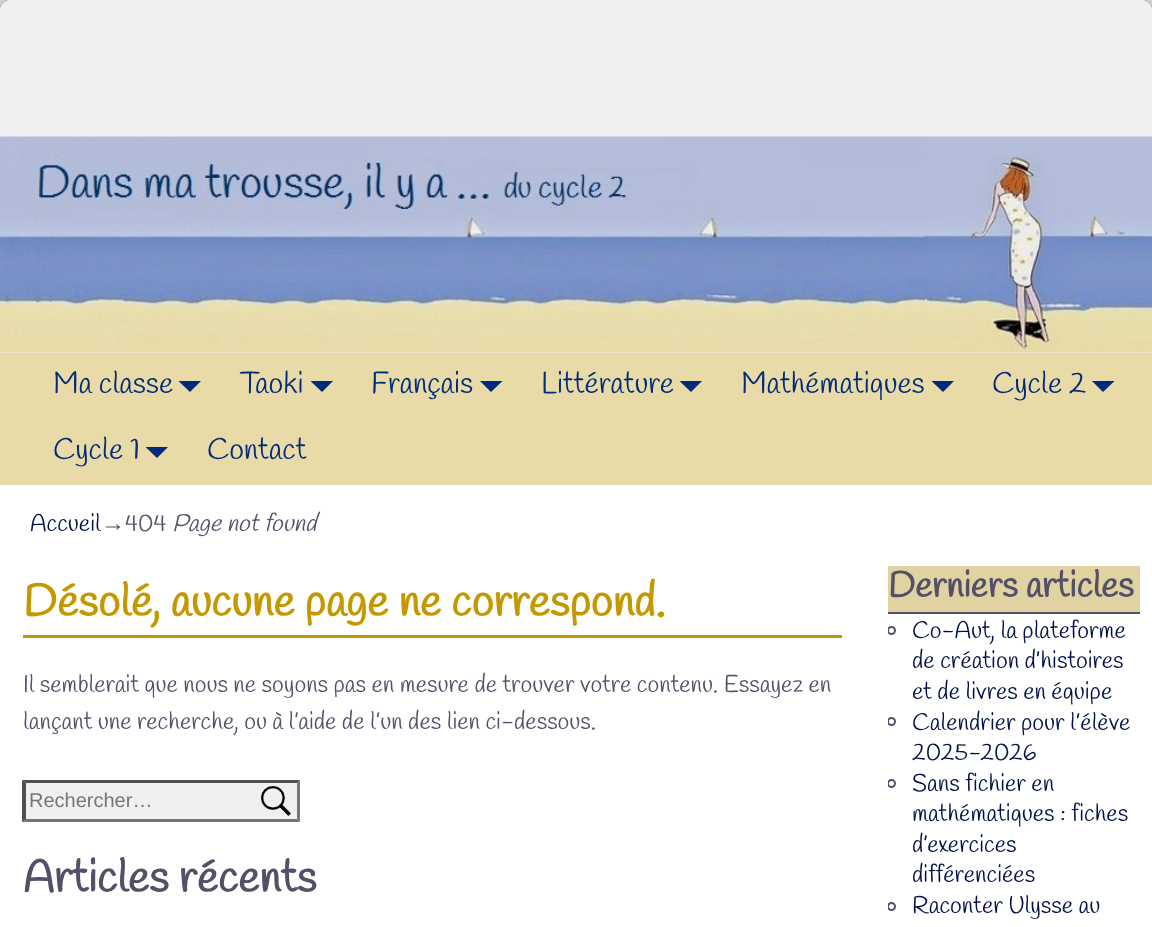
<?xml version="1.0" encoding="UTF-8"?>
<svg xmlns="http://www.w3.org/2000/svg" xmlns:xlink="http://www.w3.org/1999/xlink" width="1152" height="927">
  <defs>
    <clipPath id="clip1"><rect x="888" y="566" width="252" height="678" /></clipPath>
  </defs>
  <rect width="100%" height="100%" fill="#fcfcfc" />
  <rect x="-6" y="-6" width="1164" height="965" rx="18" fill="#000000" fill-opacity="0.25" filter="blur(4.5px)" />
  <rect width="1152" height="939" rx="12" fill="#ffffff" />
  <path d="M 12 0 h 1128 c 6.5 0 12 5.5 12 12 v 473 h -1152 v -473 c 0 -6.5 5.5 -12 12 -12 z" fill="#f0f0f0" />
  <image x="0" y="136" width="1152" height="217" xlink:href="image1.png" />
  <rect y="353" width="1152" height="132" fill="#e8dba7" />
  <path d="M 178.5 381 h 22.5 l -11 11 z" fill="#002a7a" />
  <path d="M 310.5 381 h 22.5 l -11 11 z" fill="#002a7a" />
  <path d="M 480 381 h 22.5 l -11.5 11 z" fill="#002a7a" />
  <path d="M 679.5 381 h 22.5 l -11 11 z" fill="#002a7a" />
  <path d="M 931.5 381 h 22.5 l -11 11 z" fill="#002a7a" />
  <path d="M 1092 381 h 22.5 l -11.5 11 z" fill="#002a7a" />
  <path d="M 145.5 447 h 22.5 l -11 11 z" fill="#002a7a" />
  <rect x="23" y="635" width="819" height="3" fill="#c49900" />
  <rect x="23" y="780" width="277" height="42" fill="#f0f0f0" />
  <image x="261" y="786" width="30" height="30" xlink:href="image2.png" />
  <path d="M 22 780 h 278 l -3 3 h -271 z" fill="#4f4f4f" />
  <path d="M 300 780 v 42 l -3 -3 v -36 z" fill="#767676" />
  <path d="M 300 822 h -278 l 4 -3 h 271 z" fill="#767676" />
  <path d="M 22 822 v -42 l 4 3 v 36 z" fill="#4f4f4f" />
  <rect x="888" y="566" width="252" height="46" fill="#e0d2a1" />
  <rect x="888" y="612" width="252" height="2" fill="#545068" />
  <g clip-path="url(#clip1)">
    <circle cx="891.5" cy="630.5" r="3.5" fill="none" stroke="#545068" stroke-width="2" />
    <circle cx="891.5" cy="721.5" r="3.5" fill="none" stroke="#545068" stroke-width="2" />
    <circle cx="891.5" cy="783.5" r="3.5" fill="none" stroke="#545068" stroke-width="2" />
    <circle cx="891.5" cy="906.5" r="3.5" fill="none" stroke="#545068" stroke-width="2" />
  </g>
  <text x="53" y="393" style="font-family: Handlee; font-size: 30px; fill: #002a7a">Ma classe</text>
  <text x="240" y="393" style="font-family: Handlee; font-size: 30px; fill: #002a7a">Taoki</text>
  <text x="371" y="393" style="font-family: Handlee; font-size: 30px; fill: #002a7a">Français</text>
  <text x="541" y="393" style="font-family: Handlee; font-size: 30px; fill: #002a7a">Littérature</text>
  <text x="741" y="393" style="font-family: Handlee; font-size: 30px; fill: #002a7a">Mathématiques</text>
  <text x="992" y="393" style="font-family: Handlee; font-size: 30px; fill: #002a7a">Cycle 2</text>
  <text x="53" y="459" style="font-family: Handlee; font-size: 30px; fill: #002a7a">Cycle 1</text>
  <text x="207" y="459" style="font-family: Handlee; font-size: 30px; fill: #002a7a">Contact</text>
  <text x="30" y="531" style="font-family: Handlee; font-size: 24px; fill: #001047">Accueil</text>
  <text x="101" y="531" style="font-family: Liberation Serif; font-size: 24px; fill: #545068">→</text>
  <text x="125" y="531" style="font-family: Handlee; font-size: 24px; fill: #545068">404</text>
  <text x="172" y="531" style="font-family: Handlee; font-size: 24px; font-style: italic; fill: #545068">Page not found</text>
  <text x="23" y="616" style="font-family: Handlee; font-size: 45px; font-weight: bold; fill: #c49900">Désolé, aucune page ne correspond.</text>
  <text x="23" y="692" style="font-family: Handlee; font-size: 24px; fill: #545068">Il semblerait que nous ne soyons pas en mesure de trouver votre contenu. Essayez en</text>
  <text x="23" y="729" style="font-family: Handlee; font-size: 24px; fill: #545068">lançant une recherche, ou à l’aide de l’un des lien ci-dessous.</text>
  <text x="29" y="807" style="font-family: Liberation Sans; font-size: 20px; fill: #757575">Rechercher…</text>
  <text x="23" y="892" style="font-family: Handlee; font-size: 45px; font-weight: bold; fill: #545068">Articles récents</text>
  <text x="888" y="597" style="font-family: Handlee; font-size: 36px; font-weight: bold; fill: #545068">Derniers articles</text>
  <text x="912" y="638" style="font-family: Handlee; font-size: 24px; fill: #001047">Co-Aut, la plateforme</text>
  <text x="912" y="668" style="font-family: Handlee; font-size: 24px; fill: #001047">de création d’histoires</text>
  <text x="912" y="699" style="font-family: Handlee; font-size: 24px; fill: #001047">et de livres en équipe</text>
  <text x="912" y="730" style="font-family: Handlee; font-size: 24px; fill: #001047">Calendrier pour l’élève</text>
  <text x="912" y="760" style="font-family: Handlee; font-size: 24px; fill: #001047">2025-2026</text>
  <text x="912" y="791" style="font-family: Handlee; font-size: 24px; fill: #001047">Sans fichier en</text>
  <text x="912" y="821" style="font-family: Handlee; font-size: 24px; fill: #001047">mathématiques : fiches</text>
  <text x="912" y="852" style="font-family: Handlee; font-size: 24px; fill: #001047">d’exercices</text>
  <text x="912" y="882" style="font-family: Handlee; font-size: 24px; fill: #001047">différenciées</text>
  <text x="912" y="913" style="font-family: Handlee; font-size: 24px; fill: #001047">Raconter Ulysse au</text>
</svg>
